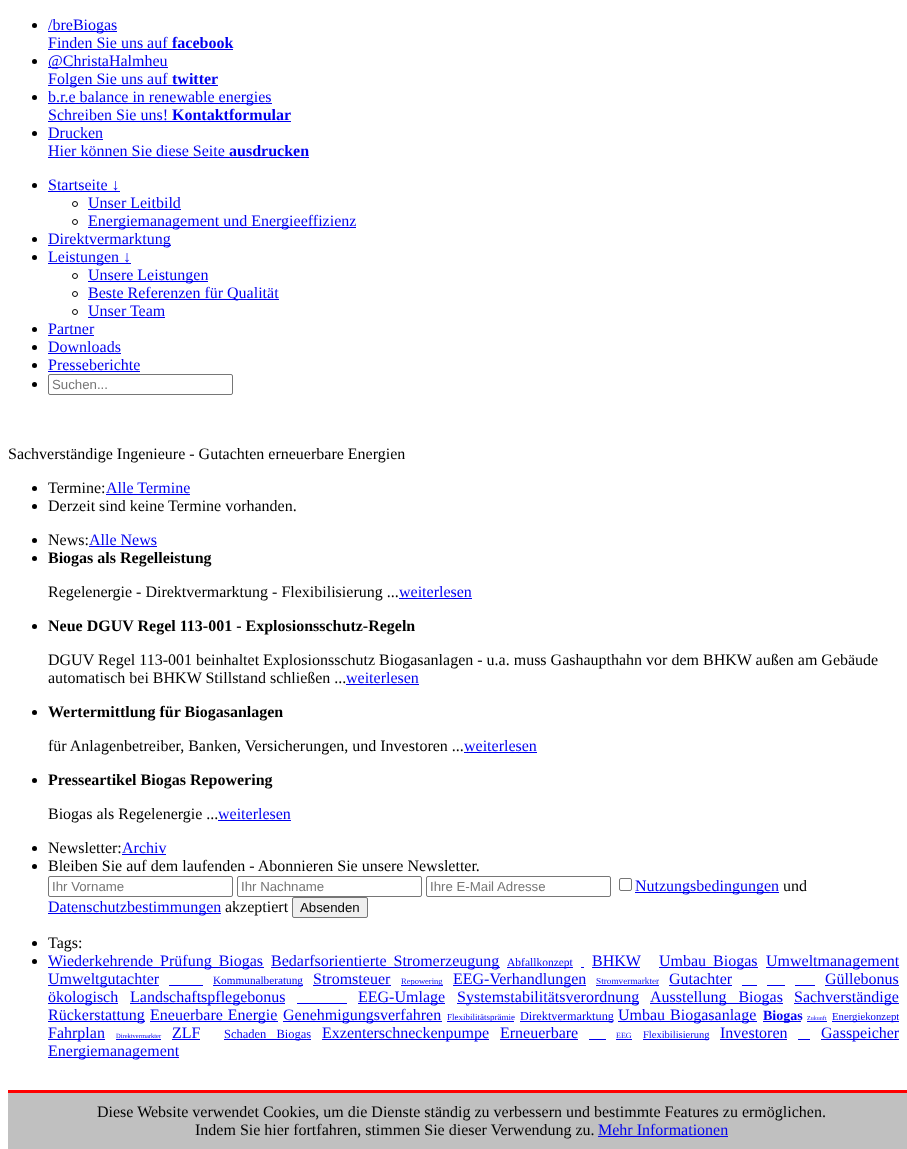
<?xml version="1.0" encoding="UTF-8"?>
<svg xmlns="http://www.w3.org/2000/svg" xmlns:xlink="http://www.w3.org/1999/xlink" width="907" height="1149">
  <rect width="100%" height="100%" fill="#ffffff" />
  <circle cx="34.5" cy="25.5" r="2.5" fill="#000000" />
  <rect x="48" y="31" width="69" height="1" fill="#0000ee" />
  <rect x="48" y="49" width="185" height="1" fill="#0000ee" />
  <circle cx="34.5" cy="61.5" r="2.5" fill="#000000" />
  <rect x="48" y="67" width="120" height="1" fill="#0000ee" />
  <rect x="48" y="85" width="170" height="1" fill="#0000ee" />
  <circle cx="34.5" cy="97.5" r="2.5" fill="#000000" />
  <rect x="48" y="103" width="224" height="1" fill="#0000ee" />
  <rect x="48" y="121" width="243" height="1" fill="#0000ee" />
  <circle cx="34.5" cy="133.5" r="2.5" fill="#000000" />
  <rect x="48" y="139" width="55" height="1" fill="#0000ee" />
  <rect x="48" y="157" width="261" height="1" fill="#0000ee" />
  <circle cx="34.5" cy="185.5" r="2.5" fill="#000000" />
  <rect x="48" y="191" width="72" height="1" fill="#0000ee" />
  <circle cx="75" cy="204" r="2.5" fill="none" stroke="#000000" />
  <rect x="88" y="209" width="93" height="1" fill="#0000ee" />
  <circle cx="75" cy="222" r="2.5" fill="none" stroke="#000000" />
  <rect x="88" y="227" width="268" height="1" fill="#0000ee" />
  <circle cx="34.5" cy="239.5" r="2.5" fill="#000000" />
  <rect x="48" y="245" width="123" height="1" fill="#0000ee" />
  <circle cx="34.5" cy="257.5" r="2.5" fill="#000000" />
  <rect x="48" y="263" width="83" height="1" fill="#0000ee" />
  <circle cx="75" cy="276" r="2.5" fill="none" stroke="#000000" />
  <rect x="88" y="281" width="120" height="1" fill="#0000ee" />
  <circle cx="75" cy="294" r="2.5" fill="none" stroke="#000000" />
  <rect x="88" y="299" width="191" height="1" fill="#0000ee" />
  <circle cx="75" cy="312" r="2.5" fill="none" stroke="#000000" />
  <rect x="88" y="317" width="77" height="1" fill="#0000ee" />
  <circle cx="34.5" cy="329.5" r="2.5" fill="#000000" />
  <rect x="48" y="335" width="46" height="1" fill="#0000ee" />
  <circle cx="34.5" cy="347.5" r="2.5" fill="#000000" />
  <rect x="48" y="353" width="73" height="1" fill="#0000ee" />
  <circle cx="34.5" cy="365.5" r="2.5" fill="#000000" />
  <rect x="48" y="371" width="92" height="1" fill="#0000ee" />
  <circle cx="34.5" cy="384.5" r="2.5" fill="#000000" />
  <rect x="48.5" y="374.5" width="184" height="20" rx="1.5" fill="none" stroke="#767676" />
  <circle cx="34.5" cy="488.5" r="2.5" fill="#000000" />
  <rect x="106" y="494" width="84" height="1" fill="#0000ee" />
  <circle cx="34.5" cy="506.5" r="2.5" fill="#000000" />
  <circle cx="34.5" cy="540.5" r="2.5" fill="#000000" />
  <rect x="89" y="546" width="68" height="1" fill="#0000ee" />
  <circle cx="34.5" cy="558.5" r="2.5" fill="#000000" />
  <rect x="399" y="598" width="73" height="1" fill="#0000ee" />
  <circle cx="34.5" cy="626.5" r="2.5" fill="#000000" />
  <rect x="346" y="684" width="73" height="1" fill="#0000ee" />
  <circle cx="34.5" cy="712.5" r="2.5" fill="#000000" />
  <rect x="464" y="752" width="73" height="1" fill="#0000ee" />
  <circle cx="34.5" cy="780.5" r="2.5" fill="#000000" />
  <rect x="218" y="820" width="73" height="1" fill="#0000ee" />
  <circle cx="34.5" cy="848.5" r="2.5" fill="#000000" />
  <rect x="122" y="854" width="44" height="1" fill="#0000ee" />
  <circle cx="34.5" cy="866.5" r="2.5" fill="#000000" />
  <rect x="48.5" y="876.5" width="184" height="20" rx="1.5" fill="none" stroke="#767676" />
  <rect x="237.5" y="876.5" width="184" height="20" rx="1.5" fill="none" stroke="#767676" />
  <rect x="426.5" y="876.5" width="184" height="20" rx="1.5" fill="none" stroke="#767676" />
  <rect x="619.5" y="878.5" width="12" height="12" rx="1.5" fill="none" stroke="#767676" />
  <rect x="635" y="892" width="144" height="1" fill="#0000ee" />
  <rect x="48" y="913" width="173" height="1" fill="#0000ee" />
  <rect x="292.5" y="897.5" width="75" height="20" rx="1.5" fill="#efefef" stroke="#767676" />
  <circle cx="34.5" cy="943.5" r="2.5" fill="#000000" />
  <circle cx="34.5" cy="961.5" r="2.5" fill="#000000" />
  <rect x="48" y="967" width="216" height="1" fill="#0000ee" />
  <rect x="271" y="967" width="229" height="1" fill="#0000ee" />
  <rect x="507" y="967" width="66" height="1" fill="#0000ee" />
  <rect x="592" y="967" width="48" height="1" fill="#0000ee" />
  <rect x="659" y="967" width="99" height="1" fill="#0000ee" />
  <rect x="766" y="967" width="133" height="1" fill="#0000ee" />
  <rect x="581" y="967" width="3" height="1" fill="#0000ee" />
  <rect x="48" y="985" width="111" height="1" fill="#0000ee" />
  <rect x="169" y="985" width="34" height="1" fill="#0000ee" />
  <rect x="213" y="985" width="90" height="1" fill="#0000ee" />
  <rect x="313" y="985" width="78" height="1" fill="#0000ee" />
  <rect x="401" y="985" width="42" height="1" fill="#0000ee" />
  <rect x="453" y="985" width="133" height="1" fill="#0000ee" />
  <rect x="596" y="985" width="63" height="1" fill="#0000ee" />
  <rect x="669" y="985" width="63" height="1" fill="#0000ee" />
  <rect x="742" y="985" width="15" height="1" fill="#0000ee" />
  <rect x="767" y="985" width="18" height="1" fill="#0000ee" />
  <rect x="795" y="985" width="20" height="1" fill="#0000ee" />
  <rect x="825" y="985" width="74" height="1" fill="#0000ee" />
  <rect x="48" y="1003" width="70" height="1" fill="#0000ee" />
  <rect x="130" y="1003" width="155" height="1" fill="#0000ee" />
  <rect x="297" y="1003" width="50" height="1" fill="#0000ee" />
  <rect x="358" y="1003" width="87" height="1" fill="#0000ee" />
  <rect x="457" y="1003" width="182" height="1" fill="#0000ee" />
  <rect x="650" y="1003" width="133" height="1" fill="#0000ee" />
  <rect x="794" y="1003" width="105" height="1" fill="#0000ee" />
  <rect x="48" y="1021" width="97" height="1" fill="#0000ee" />
  <rect x="150" y="1021" width="128" height="1" fill="#0000ee" />
  <rect x="283" y="1021" width="159" height="1" fill="#0000ee" />
  <rect x="447" y="1021" width="67" height="1" fill="#0000ee" />
  <rect x="520" y="1021" width="93" height="1" fill="#0000ee" />
  <rect x="618" y="1021" width="139" height="1" fill="#0000ee" />
  <rect x="763" y="1021" width="38" height="1" fill="#0000ee" />
  <rect x="807" y="1021" width="20" height="1" fill="#0000ee" />
  <rect x="832" y="1021" width="67" height="1" fill="#0000ee" />
  <rect x="48" y="1039" width="57" height="1" fill="#0000ee" />
  <rect x="116" y="1039" width="45" height="1" fill="#0000ee" />
  <rect x="172" y="1039" width="28" height="1" fill="#0000ee" />
  <rect x="224" y="1039" width="87" height="1" fill="#0000ee" />
  <rect x="322" y="1039" width="167" height="1" fill="#0000ee" />
  <rect x="500" y="1039" width="78" height="1" fill="#0000ee" />
  <rect x="616" y="1039" width="16" height="1" fill="#0000ee" />
  <rect x="643" y="1039" width="66" height="1" fill="#0000ee" />
  <rect x="720" y="1039" width="67" height="1" fill="#0000ee" />
  <rect x="821" y="1039" width="78" height="1" fill="#0000ee" />
  <rect x="589" y="1039" width="17" height="1" fill="#0000ee" />
  <rect x="798" y="1039" width="12" height="1" fill="#0000ee" />
  <rect x="48" y="1057" width="131" height="1" fill="#0000ee" />
  <rect x="8" y="1093" width="899" height="56" fill="#c0c0c0" />
  <rect x="8" y="1090" width="899" height="3" fill="#ff0000" />
  <rect x="598" y="1136" width="130" height="1" fill="#0000ee" />
  <text x="48" y="30" style="font-family: Liberation Serif; font-size: 16px; fill: #0000ee">/breBiogas</text>
  <text x="48" y="48" style="font-family: Liberation Serif; font-size: 16px; fill: #0000ee">Finden Sie uns auf</text>
  <text x="172" y="48" style="font-family: Liberation Serif; font-size: 16px; font-weight: bold; fill: #0000ee">facebook</text>
  <text x="48" y="66" style="font-family: Liberation Serif; font-size: 16px; fill: #0000ee">@ChristaHalmheu</text>
  <text x="48" y="84" style="font-family: Liberation Serif; font-size: 16px; fill: #0000ee">Folgen Sie uns auf</text>
  <text x="172" y="84" style="font-family: Liberation Serif; font-size: 16px; font-weight: bold; fill: #0000ee">twitter</text>
  <text x="48" y="102" style="font-family: Liberation Serif; font-size: 16px; fill: #0000ee">b.r.e balance in renewable energies</text>
  <text x="48" y="120" style="font-family: Liberation Serif; font-size: 16px; fill: #0000ee">Schreiben Sie uns!</text>
  <text x="172" y="120" style="font-family: Liberation Serif; font-size: 16px; font-weight: bold; fill: #0000ee">Kontaktformular</text>
  <text x="48" y="138" style="font-family: Liberation Serif; font-size: 16px; fill: #0000ee">Drucken</text>
  <text x="48" y="156" style="font-family: Liberation Serif; font-size: 16px; fill: #0000ee">Hier können Sie diese Seite</text>
  <text x="229" y="156" style="font-family: Liberation Serif; font-size: 16px; font-weight: bold; fill: #0000ee">ausdrucken</text>
  <text x="48" y="190" style="font-family: Liberation Serif; font-size: 16px; fill: #0000ee">Startseite ↓</text>
  <text x="88" y="208" style="font-family: Liberation Serif; font-size: 16px; fill: #0000ee">Unser Leitbild</text>
  <text x="88" y="226" style="font-family: Liberation Serif; font-size: 16px; fill: #0000ee">Energiemanagement und Energieeffizienz</text>
  <text x="48" y="244" style="font-family: Liberation Serif; font-size: 16px; fill: #0000ee">Direktvermarktung</text>
  <text x="48" y="262" style="font-family: Liberation Serif; font-size: 16px; fill: #0000ee">Leistungen ↓</text>
  <text x="88" y="280" style="font-family: Liberation Serif; font-size: 16px; fill: #0000ee">Unsere Leistungen</text>
  <text x="88" y="298" style="font-family: Liberation Serif; font-size: 16px; fill: #0000ee">Beste Referenzen für Qualität</text>
  <text x="88" y="316" style="font-family: Liberation Serif; font-size: 16px; fill: #0000ee">Unser Team</text>
  <text x="48" y="334" style="font-family: Liberation Serif; font-size: 16px; fill: #0000ee">Partner</text>
  <text x="48" y="352" style="font-family: Liberation Serif; font-size: 16px; fill: #0000ee">Downloads</text>
  <text x="48" y="370" style="font-family: Liberation Serif; font-size: 16px; fill: #0000ee">Presseberichte</text>
  <text x="52" y="389" style="font-family: Liberation Sans; font-size: 13.25px; fill: #757575">Suchen...</text>
  <text x="8" y="459" style="font-family: Liberation Serif; font-size: 16px; fill: #000000">Sachverständige Ingenieure - Gutachten erneuerbare Energien</text>
  <text x="48" y="493" style="font-family: Liberation Serif; font-size: 16px; fill: #000000">Termine:</text>
  <text x="106" y="493" style="font-family: Liberation Serif; font-size: 16px; fill: #0000ee">Alle Termine</text>
  <text x="48" y="511" style="font-family: Liberation Serif; font-size: 16px; fill: #000000">Derzeit sind keine Termine vorhanden.</text>
  <text x="48" y="545" style="font-family: Liberation Serif; font-size: 16px; fill: #000000">News:</text>
  <text x="89" y="545" style="font-family: Liberation Serif; font-size: 16px; fill: #0000ee">Alle News</text>
  <text x="48" y="563" style="font-family: Liberation Serif; font-size: 16px; font-weight: bold; fill: #000000">Biogas als Regelleistung</text>
  <text x="48" y="597" style="font-family: Liberation Serif; font-size: 16px; fill: #000000">Regelenergie - Direktvermarktung - Flexibilisierung ...</text>
  <text x="399" y="597" style="font-family: Liberation Serif; font-size: 16px; fill: #0000ee">weiterlesen</text>
  <text x="48" y="631" style="font-family: Liberation Serif; font-size: 16px; font-weight: bold; fill: #000000">Neue DGUV Regel 113-001 - Explosionsschutz-Regeln</text>
  <text x="48" y="665" style="font-family: Liberation Serif; font-size: 16px; fill: #000000">DGUV Regel 113-001 beinhaltet Explosionsschutz Biogasanlagen - u.a. muss Gashaupthahn vor dem BHKW außen am Gebäude</text>
  <text x="48" y="683" style="font-family: Liberation Serif; font-size: 16px; fill: #000000">automatisch bei BHKW Stillstand schließen ...</text>
  <text x="346" y="683" style="font-family: Liberation Serif; font-size: 16px; fill: #0000ee">weiterlesen</text>
  <text x="48" y="717" style="font-family: Liberation Serif; font-size: 16px; font-weight: bold; fill: #000000">Wertermittlung für Biogasanlagen</text>
  <text x="48" y="751" style="font-family: Liberation Serif; font-size: 16px; fill: #000000">für Anlagenbetreiber, Banken, Versicherungen, und Investoren ...</text>
  <text x="464" y="751" style="font-family: Liberation Serif; font-size: 16px; fill: #0000ee">weiterlesen</text>
  <text x="48" y="785" style="font-family: Liberation Serif; font-size: 16px; font-weight: bold; fill: #000000">Presseartikel Biogas Repowering</text>
  <text x="48" y="819" style="font-family: Liberation Serif; font-size: 16px; fill: #000000">Biogas als Regelenergie ...</text>
  <text x="218" y="819" style="font-family: Liberation Serif; font-size: 16px; fill: #0000ee">weiterlesen</text>
  <text x="48" y="853" style="font-family: Liberation Serif; font-size: 16px; fill: #000000">Newsletter:</text>
  <text x="122" y="853" style="font-family: Liberation Serif; font-size: 16px; fill: #0000ee">Archiv</text>
  <text x="48" y="871" style="font-family: Liberation Serif; font-size: 16px; fill: #000000">Bleiben Sie auf dem laufenden - Abonnieren Sie unsere Newsletter.</text>
  <text x="52" y="891" style="font-family: Liberation Sans; font-size: 13.25px; fill: #757575">Ihr Vorname</text>
  <text x="241" y="891" style="font-family: Liberation Sans; font-size: 13.25px; fill: #757575">Ihr Nachname</text>
  <text x="430" y="891" style="font-family: Liberation Sans; font-size: 13.25px; fill: #757575">Ihre E-Mail Adresse</text>
  <text x="635" y="891" style="font-family: Liberation Serif; font-size: 16px; fill: #0000ee">Nutzungsbedingungen</text>
  <text x="783" y="891" style="font-family: Liberation Serif; font-size: 16px; fill: #000000">und</text>
  <text x="48" y="912" style="font-family: Liberation Serif; font-size: 16px; fill: #0000ee">Datenschutzbestimmungen</text>
  <text x="225" y="912" style="font-family: Liberation Serif; font-size: 16px; fill: #000000">akzeptiert</text>
  <text x="300" y="912" style="font-family: Liberation Sans; font-size: 13.25px; fill: #000000">Absenden</text>
  <text x="48" y="948" style="font-family: Liberation Serif; font-size: 16px; fill: #000000">Tags:</text>
  <text x="48" y="966" word-spacing="3" style="font-family: Liberation Serif; font-size: 16px; fill: #0000ee">Wiederkehrende Prüfung Biogas</text>
  <text x="271" y="966" word-spacing="3" style="font-family: Liberation Serif; font-size: 16px; fill: #0000ee">Bedarfsorientierte Stromerzeugung</text>
  <text x="507" y="966" style="font-family: Liberation Serif; font-size: 11.5px; fill: #0000ee">Abfallkonzept</text>
  <text x="592" y="966" style="font-family: Liberation Serif; font-size: 16px; fill: #0000ee">BHKW</text>
  <text x="659" y="966" word-spacing="3" style="font-family: Liberation Serif; font-size: 16px; fill: #0000ee">Umbau Biogas</text>
  <text x="766" y="966" style="font-family: Liberation Serif; font-size: 16px; fill: #0000ee">Umweltmanagement</text>
  <text x="48" y="984" style="font-family: Liberation Serif; font-size: 16px; fill: #0000ee">Umweltgutachter</text>
  <text x="213" y="984" style="font-family: Liberation Serif; font-size: 11.25px; fill: #0000ee">Kommunalberatung</text>
  <text x="313" y="984" style="font-family: Liberation Serif; font-size: 16px; fill: #0000ee">Stromsteuer</text>
  <text x="401" y="984" style="font-family: Liberation Serif; font-size: 8.5px; fill: #0000ee">Repowering</text>
  <text x="453" y="984" style="font-family: Liberation Serif; font-size: 16px; fill: #0000ee">EEG-Verhandlungen</text>
  <text x="596" y="984" style="font-family: Liberation Serif; font-size: 9.25px; fill: #0000ee">Stromvermarkter</text>
  <text x="669" y="984" style="font-family: Liberation Serif; font-size: 16px; fill: #0000ee">Gutachter</text>
  <text x="825" y="984" style="font-family: Liberation Serif; font-size: 16px; fill: #0000ee">Güllebonus</text>
  <text x="48" y="1002" style="font-family: Liberation Serif; font-size: 16px; fill: #0000ee">ökologisch</text>
  <text x="130" y="1002" style="font-family: Liberation Serif; font-size: 16px; fill: #0000ee">Landschaftspflegebonus</text>
  <text x="358" y="1002" style="font-family: Liberation Serif; font-size: 16px; fill: #0000ee">EEG-Umlage</text>
  <text x="457" y="1002" style="font-family: Liberation Serif; font-size: 16px; fill: #0000ee">Systemstabilitätsverordnung</text>
  <text x="650" y="1002" word-spacing="8" style="font-family: Liberation Serif; font-size: 16px; fill: #0000ee">Ausstellung Biogas</text>
  <text x="794" y="1002" style="font-family: Liberation Serif; font-size: 16px; fill: #0000ee">Sachverständige</text>
  <text x="48" y="1020" style="font-family: Liberation Serif; font-size: 16px; fill: #0000ee">Rückerstattung</text>
  <text x="150" y="1020" word-spacing="1" style="font-family: Liberation Serif; font-size: 16px; fill: #0000ee">Eneuerbare Energie</text>
  <text x="283" y="1020" style="font-family: Liberation Serif; font-size: 16px; fill: #0000ee">Genehmigungsverfahren</text>
  <text x="447" y="1020" style="font-family: Liberation Serif; font-size: 9px; fill: #0000ee">Flexibilitätsprämie</text>
  <text x="520" y="1020" style="font-family: Liberation Serif; font-size: 12.25px; fill: #0000ee">Direktvermarktung</text>
  <text x="618" y="1020" word-spacing="1" style="font-family: Liberation Serif; font-size: 16px; fill: #0000ee">Umbau Biogasanlage</text>
  <text x="763" y="1020" style="font-family: Liberation Serif; font-size: 14px; font-weight: bold; fill: #0000ee">Biogas</text>
  <text x="807" y="1020" style="font-family: Liberation Serif; font-size: 6px; fill: #0000ee">Zukunft</text>
  <text x="832" y="1020" style="font-family: Liberation Serif; font-size: 10.75px; fill: #0000ee">Energiekonzept</text>
  <text x="48" y="1038" style="font-family: Liberation Serif; font-size: 16px; fill: #0000ee">Fahrplan</text>
  <text x="116" y="1038" style="font-family: Liberation Serif; font-size: 6.5px; fill: #0000ee">Direktvermarkter</text>
  <text x="172" y="1038" style="font-family: Liberation Serif; font-size: 16px; fill: #0000ee">ZLF</text>
  <text x="224" y="1038" word-spacing="7" style="font-family: Liberation Serif; font-size: 12.5px; fill: #0000ee">Schaden Biogas</text>
  <text x="322" y="1038" style="font-family: Liberation Serif; font-size: 16px; fill: #0000ee">Exzenterschneckenpumpe</text>
  <text x="500" y="1038" style="font-family: Liberation Serif; font-size: 16px; fill: #0000ee">Erneuerbare</text>
  <text x="616" y="1038" style="font-family: Liberation Serif; font-size: 8px; fill: #0000ee">EEG</text>
  <text x="643" y="1038" style="font-family: Liberation Serif; font-size: 10.5px; fill: #0000ee">Flexibilisierung</text>
  <text x="720" y="1038" style="font-family: Liberation Serif; font-size: 16px; fill: #0000ee">Investoren</text>
  <text x="821" y="1038" style="font-family: Liberation Serif; font-size: 16px; fill: #0000ee">Gasspeicher</text>
  <text x="48" y="1056" style="font-family: Liberation Serif; font-size: 16px; fill: #0000ee">Energiemanagement</text>
  <text x="97" y="1117" style="font-family: Liberation Serif; font-size: 16px; fill: #000000">Diese Website verwendet Cookies, um die Dienste ständig zu verbessern und bestimmte Features zu ermöglichen.</text>
  <text x="195" y="1135" style="font-family: Liberation Serif; font-size: 16px; fill: #000000">Indem Sie hier fortfahren, stimmen Sie dieser Verwendung zu.</text>
  <text x="598" y="1135" style="font-family: Liberation Serif; font-size: 16px; fill: #0000ee">Mehr Informationen</text>
</svg>
